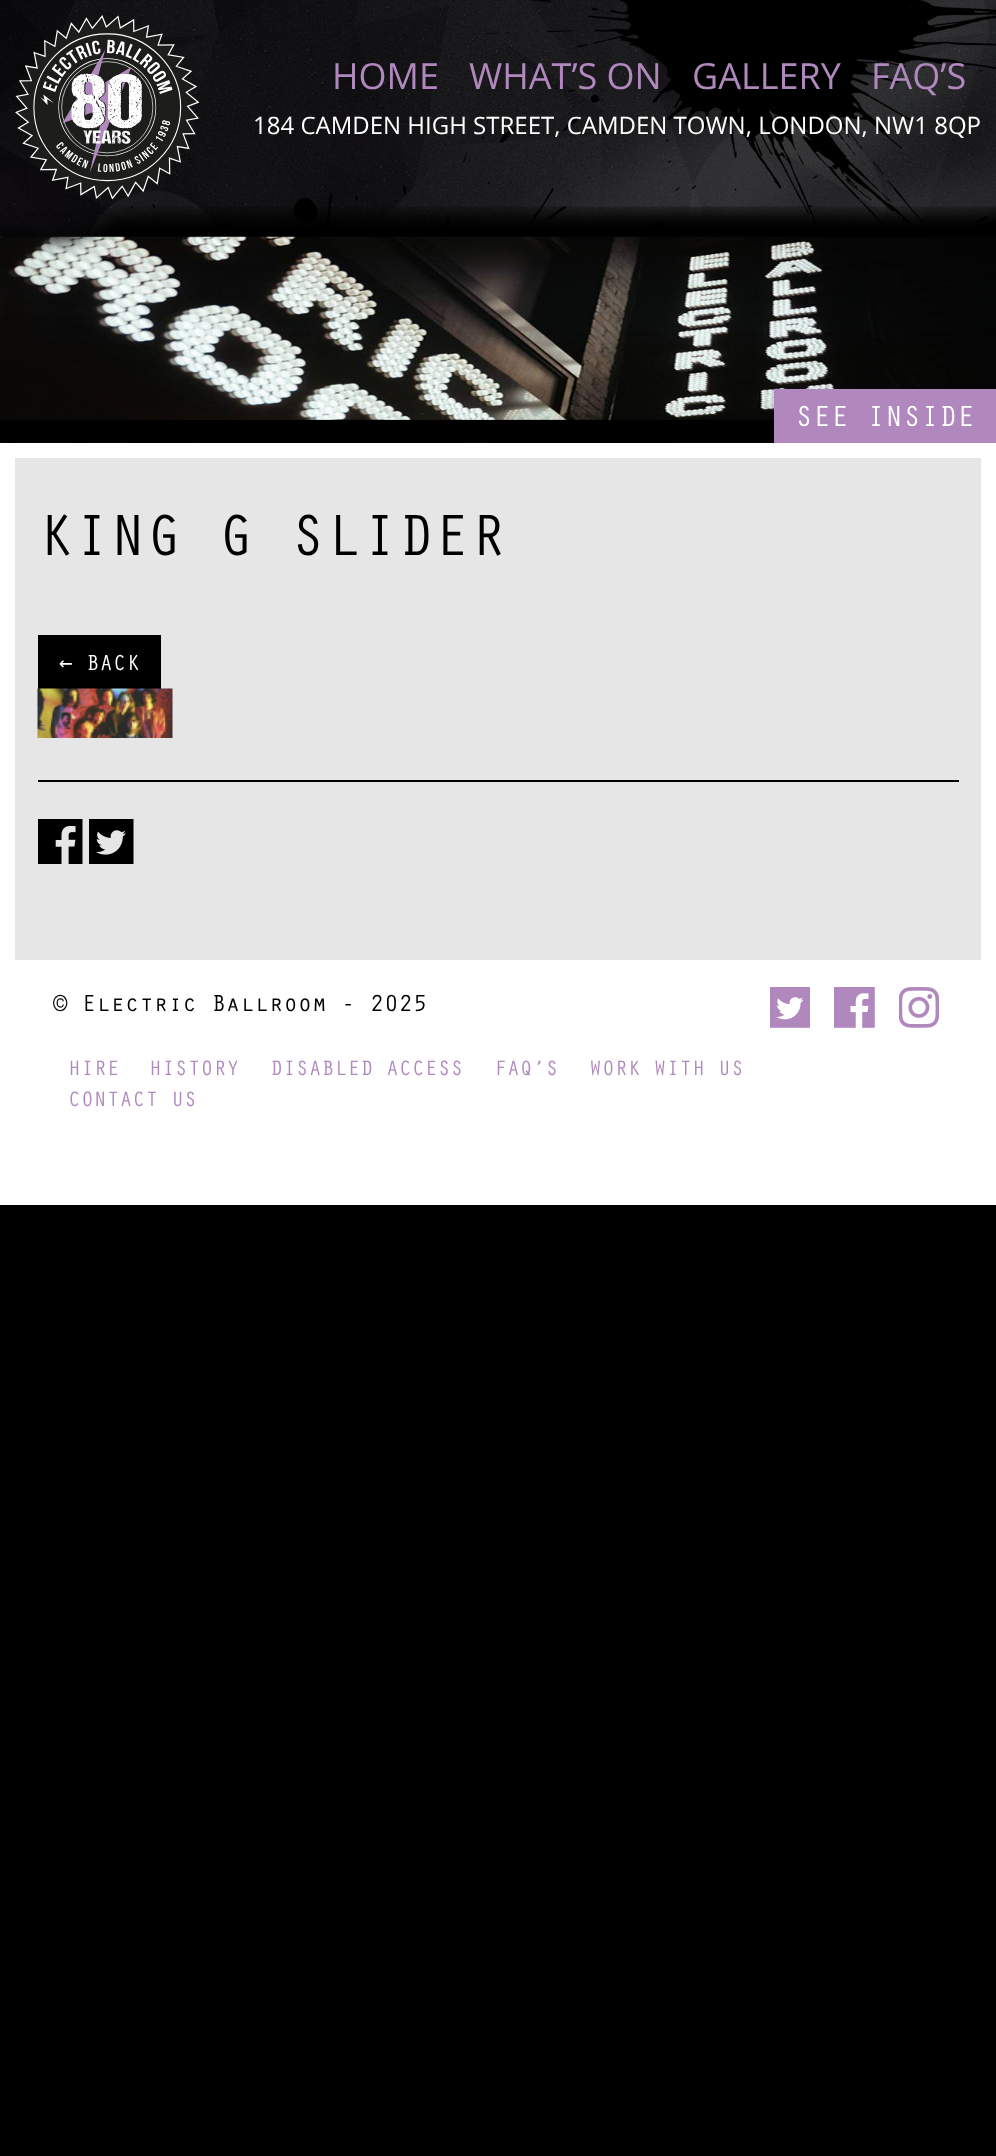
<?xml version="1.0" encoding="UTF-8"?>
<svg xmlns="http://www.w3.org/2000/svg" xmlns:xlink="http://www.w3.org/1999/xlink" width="996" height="2156">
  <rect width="100%" height="100%" fill="#000000" />
  <image x="0" y="0" width="996" height="443" xlink:href="image1.png" />
  <image x="15" y="15" width="185" height="185" xlink:href="image2.png" />
  <image x="0" y="206" width="996" height="237" xlink:href="image3.png" />
  <rect x="774" y="389" width="222" height="54" fill="#b088be" />
  <rect x="15" y="458" width="966" height="502" fill="#e6e6e6" />
  <rect x="7.5" y="450.5" width="981" height="747" fill="none" stroke="#ffffff" stroke-width="15" />
  <rect x="38" y="635" width="123" height="54" fill="#000000" />
  <image x="37" y="688" width="136" height="50" xlink:href="image4.png" />
  <rect x="38" y="780" width="921" height="2" fill="#000000" />
  <image x="38" y="819" width="45" height="45" xlink:href="image5.png" />
  <image x="89" y="819" width="45" height="45" xlink:href="image6.png" />
  <rect x="15" y="960" width="966" height="230" fill="#ffffff" />
  <image x="770" y="987" width="40" height="41" xlink:href="image7.png" />
  <image x="834" y="987" width="41" height="41" xlink:href="image8.png" />
  <image x="899" y="987" width="40" height="41" xlink:href="image9.png" />
  <text x="332" y="89" style="font-family: Open Sans; font-size: 36px; fill: #b088be">HOME</text>
  <text x="469" y="89" style="font-family: Open Sans; font-size: 36px; fill: #b088be">WHAT’S ON</text>
  <text x="692" y="89" style="font-family: Open Sans; font-size: 36px; fill: #b088be">GALLERY</text>
  <text x="871" y="89" style="font-family: Open Sans; font-size: 36px; fill: #b088be">FAQ’S</text>
  <text x="253" y="134" style="font-family: Open Sans; font-size: 24px; fill: #ffffff">184 CAMDEN HIGH STREET, CAMDEN TOWN, LONDON, NW1 8QP</text>
  <text x="795" y="426" style="font-family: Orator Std; font-size: 30px; fill: #ffffff">SEE INSIDE</text>
  <text x="38" y="555" style="font-family: Orator Std; font-size: 60px; fill: #000000">KING G SLIDER</text>
  <text x="59" y="670" style="font-family: DejaVu Sans Mono; font-size: 22.5px; fill: #ffffff">←</text>
  <text x="86" y="670" style="font-family: Orator Std; font-size: 22.5px; fill: #ffffff">BACK</text>
  <text x="53" y="1011" style="font-family: Orator Std; font-size: 24px; fill: #000000">© Electric Ballroom - 2025</text>
  <text x="68" y="1075" style="font-family: Orator Std; font-size: 21.5px; fill: #b088be">HIRE</text>
  <text x="149" y="1075" style="font-family: Orator Std; font-size: 21.5px; fill: #b088be">HISTORY</text>
  <text x="270" y="1075" style="font-family: Orator Std; font-size: 21.5px; fill: #b088be">DISABLED ACCESS</text>
  <text x="494" y="1075" style="font-family: Orator Std; font-size: 21.5px; fill: #b088be">FAQ’S</text>
  <text x="589" y="1075" style="font-family: Orator Std; font-size: 21.5px; fill: #b088be">WORK WITH US</text>
  <text x="68" y="1106" style="font-family: Orator Std; font-size: 21.5px; fill: #b088be">CONTACT US</text>
</svg>
